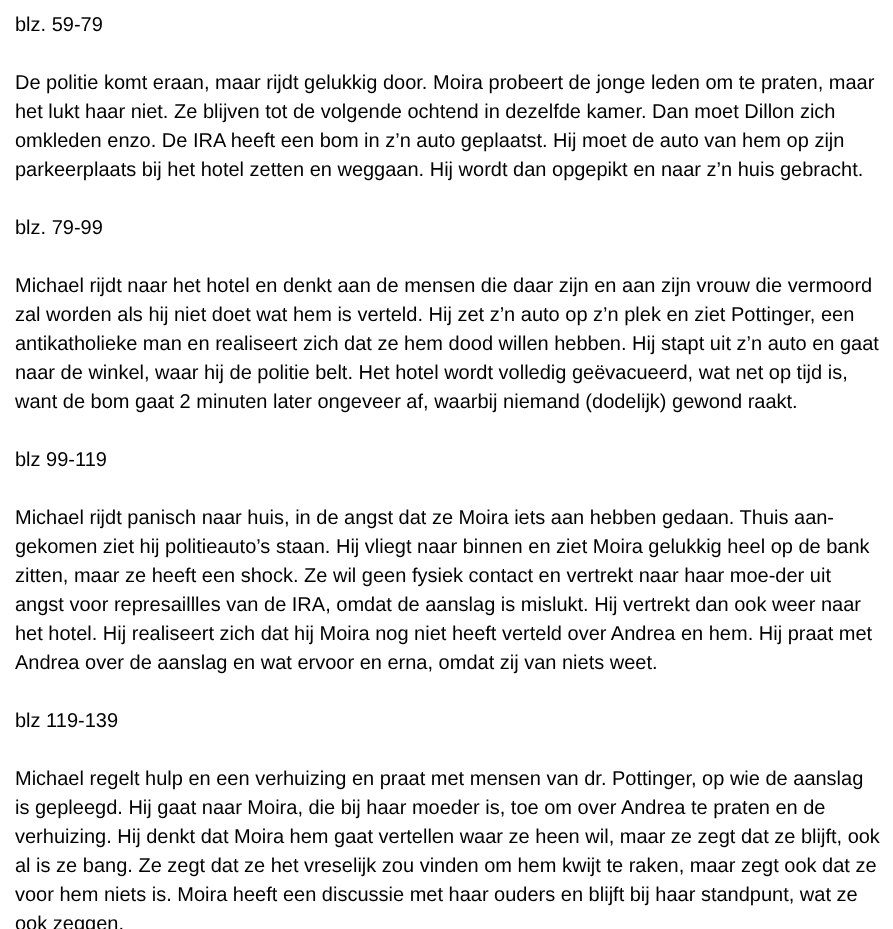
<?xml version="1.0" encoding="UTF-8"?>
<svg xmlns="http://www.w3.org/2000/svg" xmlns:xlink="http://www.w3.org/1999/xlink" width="893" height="929">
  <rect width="100%" height="100%" fill="#ffffff" />
  <text x="15" y="31" style="font-family: Liberation Sans; font-size: 20px; fill: #000000">blz. 59-79</text>
  <text x="15" y="89" style="font-family: Liberation Sans; font-size: 20px; fill: #000000">De politie komt eraan, maar rijdt gelukkig door. Moira probeert de jonge leden om te praten, maar</text>
  <text x="15" y="118" style="font-family: Liberation Sans; font-size: 20px; fill: #000000">het lukt haar niet. Ze blijven tot de volgende ochtend in dezelfde kamer. Dan moet Dillon zich</text>
  <text x="15" y="147" style="font-family: Liberation Sans; font-size: 20px; fill: #000000">omkleden enzo. De IRA heeft een bom in z’n auto geplaatst. Hij moet de auto van hem op zijn</text>
  <text x="15" y="176" style="font-family: Liberation Sans; font-size: 20px; fill: #000000">parkeerplaats bij het hotel zetten en weggaan. Hij wordt dan opgepikt en naar z’n huis gebracht.</text>
  <text x="15" y="234" style="font-family: Liberation Sans; font-size: 20px; fill: #000000">blz. 79-99</text>
  <text x="15" y="292" style="font-family: Liberation Sans; font-size: 20px; fill: #000000">Michael rijdt naar het hotel en denkt aan de mensen die daar zijn en aan zijn vrouw die vermoord</text>
  <text x="15" y="321" style="font-family: Liberation Sans; font-size: 20px; fill: #000000">zal worden als hij niet doet wat hem is verteld. Hij zet z’n auto op z’n plek en ziet Pottinger, een</text>
  <text x="15" y="350" style="font-family: Liberation Sans; font-size: 20px; fill: #000000">antikatholieke man en realiseert zich dat ze hem dood willen hebben. Hij stapt uit z’n auto en gaat</text>
  <text x="15" y="379" style="font-family: Liberation Sans; font-size: 20px; fill: #000000">naar de winkel, waar hij de politie belt. Het hotel wordt volledig geëvacueerd, wat net op tijd is,</text>
  <text x="15" y="408" style="font-family: Liberation Sans; font-size: 20px; fill: #000000">want de bom gaat 2 minuten later ongeveer af, waarbij niemand (dodelijk) gewond raakt.</text>
  <text x="15" y="466" style="font-family: Liberation Sans; font-size: 20px; fill: #000000">blz 99-119</text>
  <text x="15" y="524" style="font-family: Liberation Sans; font-size: 20px; fill: #000000">Michael rijdt panisch naar huis, in de angst dat ze Moira iets aan hebben gedaan. Thuis aan-</text>
  <text x="15" y="553" style="font-family: Liberation Sans; font-size: 20px; fill: #000000">gekomen ziet hij politieauto’s staan. Hij vliegt naar binnen en ziet Moira gelukkig heel op de bank</text>
  <text x="15" y="582" style="font-family: Liberation Sans; font-size: 20px; fill: #000000">zitten, maar ze heeft een shock. Ze wil geen fysiek contact en vertrekt naar haar moe-der uit</text>
  <text x="15" y="611" style="font-family: Liberation Sans; font-size: 20px; fill: #000000">angst voor represaillles van de IRA, omdat de aanslag is mislukt. Hij vertrekt dan ook weer naar</text>
  <text x="15" y="640" style="font-family: Liberation Sans; font-size: 20px; fill: #000000">het hotel. Hij realiseert zich dat hij Moira nog niet heeft verteld over Andrea en hem. Hij praat met</text>
  <text x="15" y="669" style="font-family: Liberation Sans; font-size: 20px; fill: #000000">Andrea over de aanslag en wat ervoor en erna, omdat zij van niets weet.</text>
  <text x="15" y="727" style="font-family: Liberation Sans; font-size: 20px; fill: #000000">blz 119-139</text>
  <text x="15" y="785" style="font-family: Liberation Sans; font-size: 20px; fill: #000000">Michael regelt hulp en een verhuizing en praat met mensen van dr. Pottinger, op wie de aanslag</text>
  <text x="15" y="814" style="font-family: Liberation Sans; font-size: 20px; fill: #000000">is gepleegd. Hij gaat naar Moira, die bij haar moeder is, toe om over Andrea te praten en de</text>
  <text x="15" y="843" style="font-family: Liberation Sans; font-size: 20px; fill: #000000">verhuizing. Hij denkt dat Moira hem gaat vertellen waar ze heen wil, maar ze zegt dat ze blijft, ook</text>
  <text x="15" y="872" style="font-family: Liberation Sans; font-size: 20px; fill: #000000">al is ze bang. Ze zegt dat ze het vreselijk zou vinden om hem kwijt te raken, maar zegt ook dat ze</text>
  <text x="15" y="901" style="font-family: Liberation Sans; font-size: 20px; fill: #000000">voor hem niets is. Moira heeft een discussie met haar ouders en blijft bij haar standpunt, wat ze</text>
  <text x="15" y="930" style="font-family: Liberation Sans; font-size: 20px; fill: #000000">ook zeggen.</text>
</svg>
